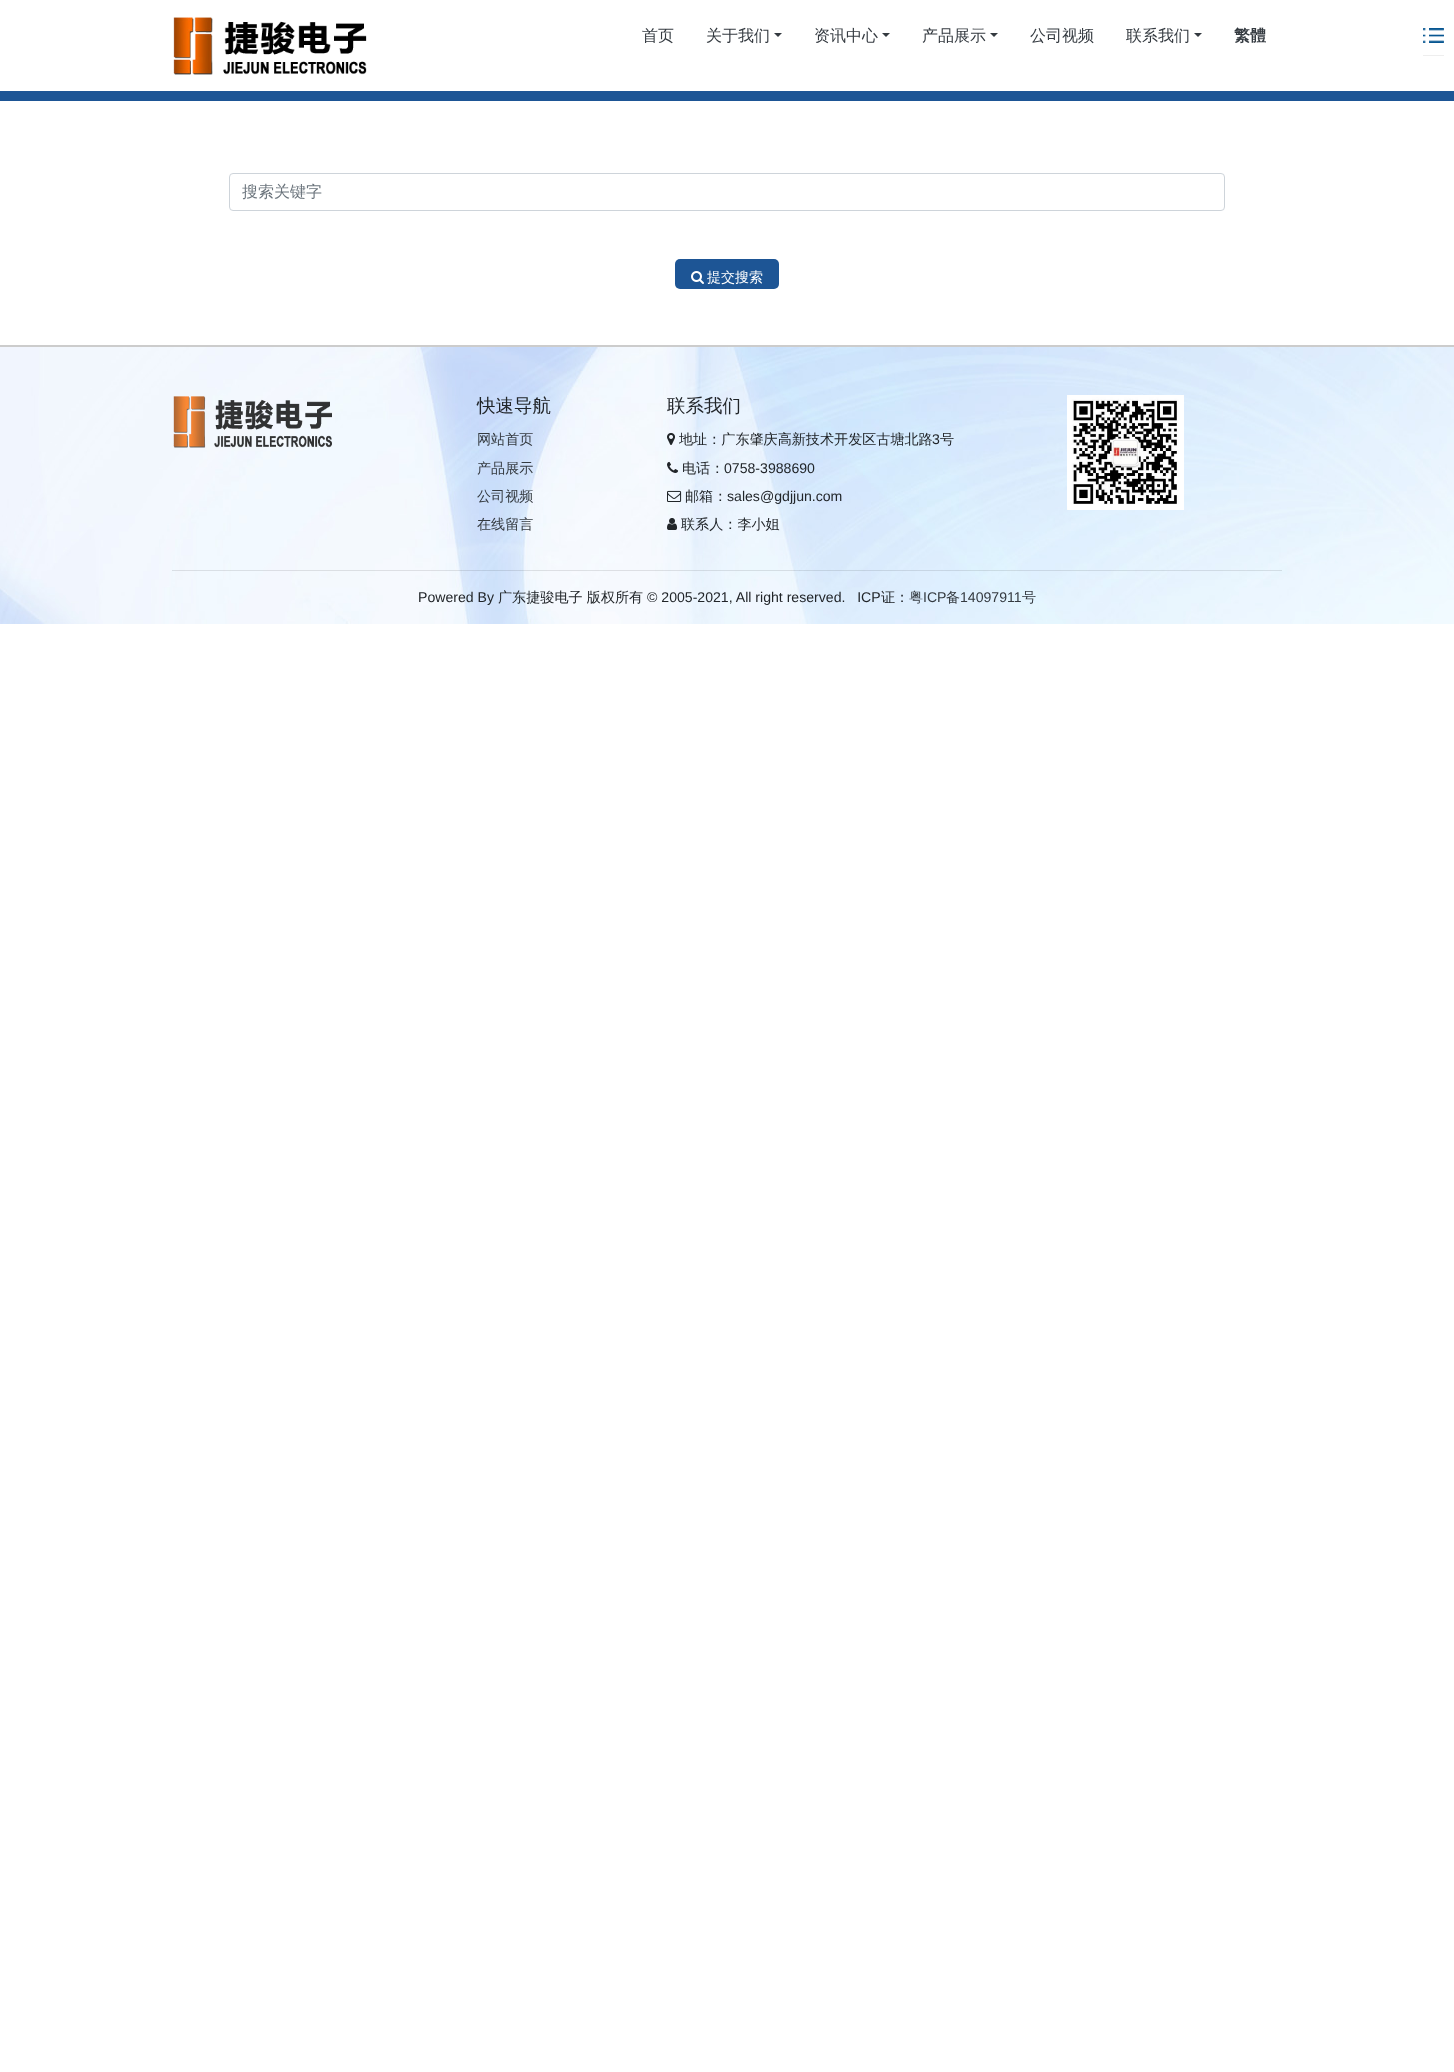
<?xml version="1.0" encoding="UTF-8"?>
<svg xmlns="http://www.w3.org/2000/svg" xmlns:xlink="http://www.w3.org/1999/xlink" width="1454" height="2072">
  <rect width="100%" height="100%" fill="#ffffff" />
  <image x="173" y="17" width="194" height="58" xlink:href="image1.png" />
  <path d="M 774 33 h 8 l -4 4 z" fill="#343a40" />
  <path d="M 882 33 h 8 l -4 4 z" fill="#343a40" />
  <path d="M 990 33 h 8 l -4 4 z" fill="#343a40" />
  <path d="M 1194 33 h 8 l -4 4 z" fill="#343a40" />
  <rect x="1423" y="55" width="21" height="1" fill="#eeeeee" />
  <image x="1423" y="28" width="21" height="15" xlink:href="image2.png" />
  <rect y="91" width="1454" height="10" fill="#1d5595" />
  <rect x="229.5" y="173.5" width="995" height="37" rx="3.5" fill="none" stroke="#ced4da" />
  <rect x="675" y="259" width="104" height="30" rx="5" fill="#1d5595" />
  <image x="691" y="271" width="13" height="13" xlink:href="image3.png" />
  <image x="0" y="347" width="1454" height="277" xlink:href="image4.png" />
  <rect y="345" width="1454" height="2" fill="#cccccc" />
  <image x="173" y="396" width="159" height="52" xlink:href="image5.png" />
  <image x="667" y="432" width="8" height="13" xlink:href="image6.png" />
  <image x="667" y="461" width="12" height="12" xlink:href="image7.png" />
  <image x="667" y="490" width="15" height="12" xlink:href="image8.png" />
  <image x="667" y="518" width="11" height="12" xlink:href="image9.png" />
  <image x="1067" y="395" width="117" height="115" xlink:href="image10.png" />
  <rect x="172" y="570" width="1110" height="1" fill="#000000" fill-opacity="0.1" />
  <text x="642" y="41" style="font-family: WenQuanYi Zen Hei; font-size: 16px; font-weight: 500; fill: #343a40">首页</text>
  <text x="706" y="41" style="font-family: WenQuanYi Zen Hei; font-size: 16px; font-weight: 500; fill: #343a40">关于我们</text>
  <text x="814" y="41" style="font-family: WenQuanYi Zen Hei; font-size: 16px; font-weight: 500; fill: #343a40">资讯中心</text>
  <text x="922" y="41" style="font-family: WenQuanYi Zen Hei; font-size: 16px; font-weight: 500; fill: #343a40">产品展示</text>
  <text x="1030" y="41" style="font-family: WenQuanYi Zen Hei; font-size: 16px; font-weight: 500; fill: #343a40">公司视频</text>
  <text x="1126" y="41" style="font-family: WenQuanYi Zen Hei; font-size: 16px; font-weight: 500; fill: #343a40">联系我们</text>
  <text x="1234" y="41" style="font-family: WenQuanYi Zen Hei; font-size: 16px; font-weight: bold; fill: #343a40">繁體</text>
  <text x="242" y="197" style="font-family: WenQuanYi Zen Hei; font-size: 16px; font-weight: 500; fill: #6c757d">搜索关键字</text>
  <text x="707" y="282" style="font-family: WenQuanYi Zen Hei; font-size: 14px; font-weight: 500; fill: #ffffff">提交搜索</text>
  <text x="477" y="412" style="font-family: WenQuanYi Zen Hei; font-size: 18.5px; font-weight: 500; fill: #212529">快速导航</text>
  <text x="477" y="444" style="font-family: WenQuanYi Zen Hei; font-size: 14.1px; font-weight: 500; fill: #343a40">网站首页</text>
  <text x="477" y="473" style="font-family: WenQuanYi Zen Hei; font-size: 14.1px; font-weight: 500; fill: #343a40">产品展示</text>
  <text x="477" y="501" style="font-family: WenQuanYi Zen Hei; font-size: 14.1px; font-weight: 500; fill: #343a40">公司视频</text>
  <text x="477" y="529" style="font-family: WenQuanYi Zen Hei; font-size: 14.1px; font-weight: 500; fill: #343a40">在线留言</text>
  <text x="667" y="412" style="font-family: WenQuanYi Zen Hei; font-size: 18.5px; font-weight: 500; fill: #212529">联系我们</text>
  <text x="679" y="444" style="font-family: WenQuanYi Zen Hei; font-size: 14.1px; font-weight: 500; fill: #212529">地址：广东肇庆高新技术开发区古塘北路</text>
  <text x="932" y="444" style="font-family: Liberation Sans; font-size: 14.1px; fill: #212529">3</text>
  <text x="940" y="444" style="font-family: WenQuanYi Zen Hei; font-size: 14.1px; font-weight: 500; fill: #212529">号</text>
  <text x="682" y="473" style="font-family: WenQuanYi Zen Hei; font-size: 14.1px; font-weight: 500; fill: #212529">电话：</text>
  <text x="724" y="473" style="font-family: Liberation Sans; font-size: 14.1px; fill: #212529">0758-3988690</text>
  <text x="685" y="501" style="font-family: WenQuanYi Zen Hei; font-size: 14.1px; font-weight: 500; fill: #212529">邮箱：</text>
  <text x="727" y="501" style="font-family: Liberation Sans; font-size: 14.1px; fill: #212529">sales@gdjjun.com</text>
  <text x="681" y="529" style="font-family: WenQuanYi Zen Hei; font-size: 14.1px; font-weight: 500; fill: #212529">联系人：李小姐</text>
  <text x="418" y="602" style="font-family: Liberation Sans; font-size: 14.1px; fill: #212529">Powered By</text>
  <text x="498" y="602" style="font-family: WenQuanYi Zen Hei; font-size: 14.1px; font-weight: 500; fill: #212529">广东捷骏电子 版权所有</text>
  <text x="647" y="602" style="font-family: Liberation Sans; font-size: 14.1px; fill: #212529" xml:space="preserve">© 2005-2021, All right reserved.   ICP</text>
  <text x="881" y="602" style="font-family: WenQuanYi Zen Hei; font-size: 14.1px; font-weight: 500; fill: #212529">证：</text>
  <text x="909" y="602" style="font-family: WenQuanYi Zen Hei; font-size: 14.1px; font-weight: 500; fill: #343a40">粤</text>
  <text x="923" y="602" style="font-family: Liberation Sans; font-size: 14.1px; fill: #343a40">ICP</text>
  <text x="946" y="602" style="font-family: WenQuanYi Zen Hei; font-size: 14.1px; font-weight: 500; fill: #343a40">备</text>
  <text x="960" y="602" style="font-family: Liberation Sans; font-size: 14.1px; fill: #343a40">14097911</text>
  <text x="1022" y="602" style="font-family: WenQuanYi Zen Hei; font-size: 14.1px; font-weight: 500; fill: #343a40">号</text>
</svg>
